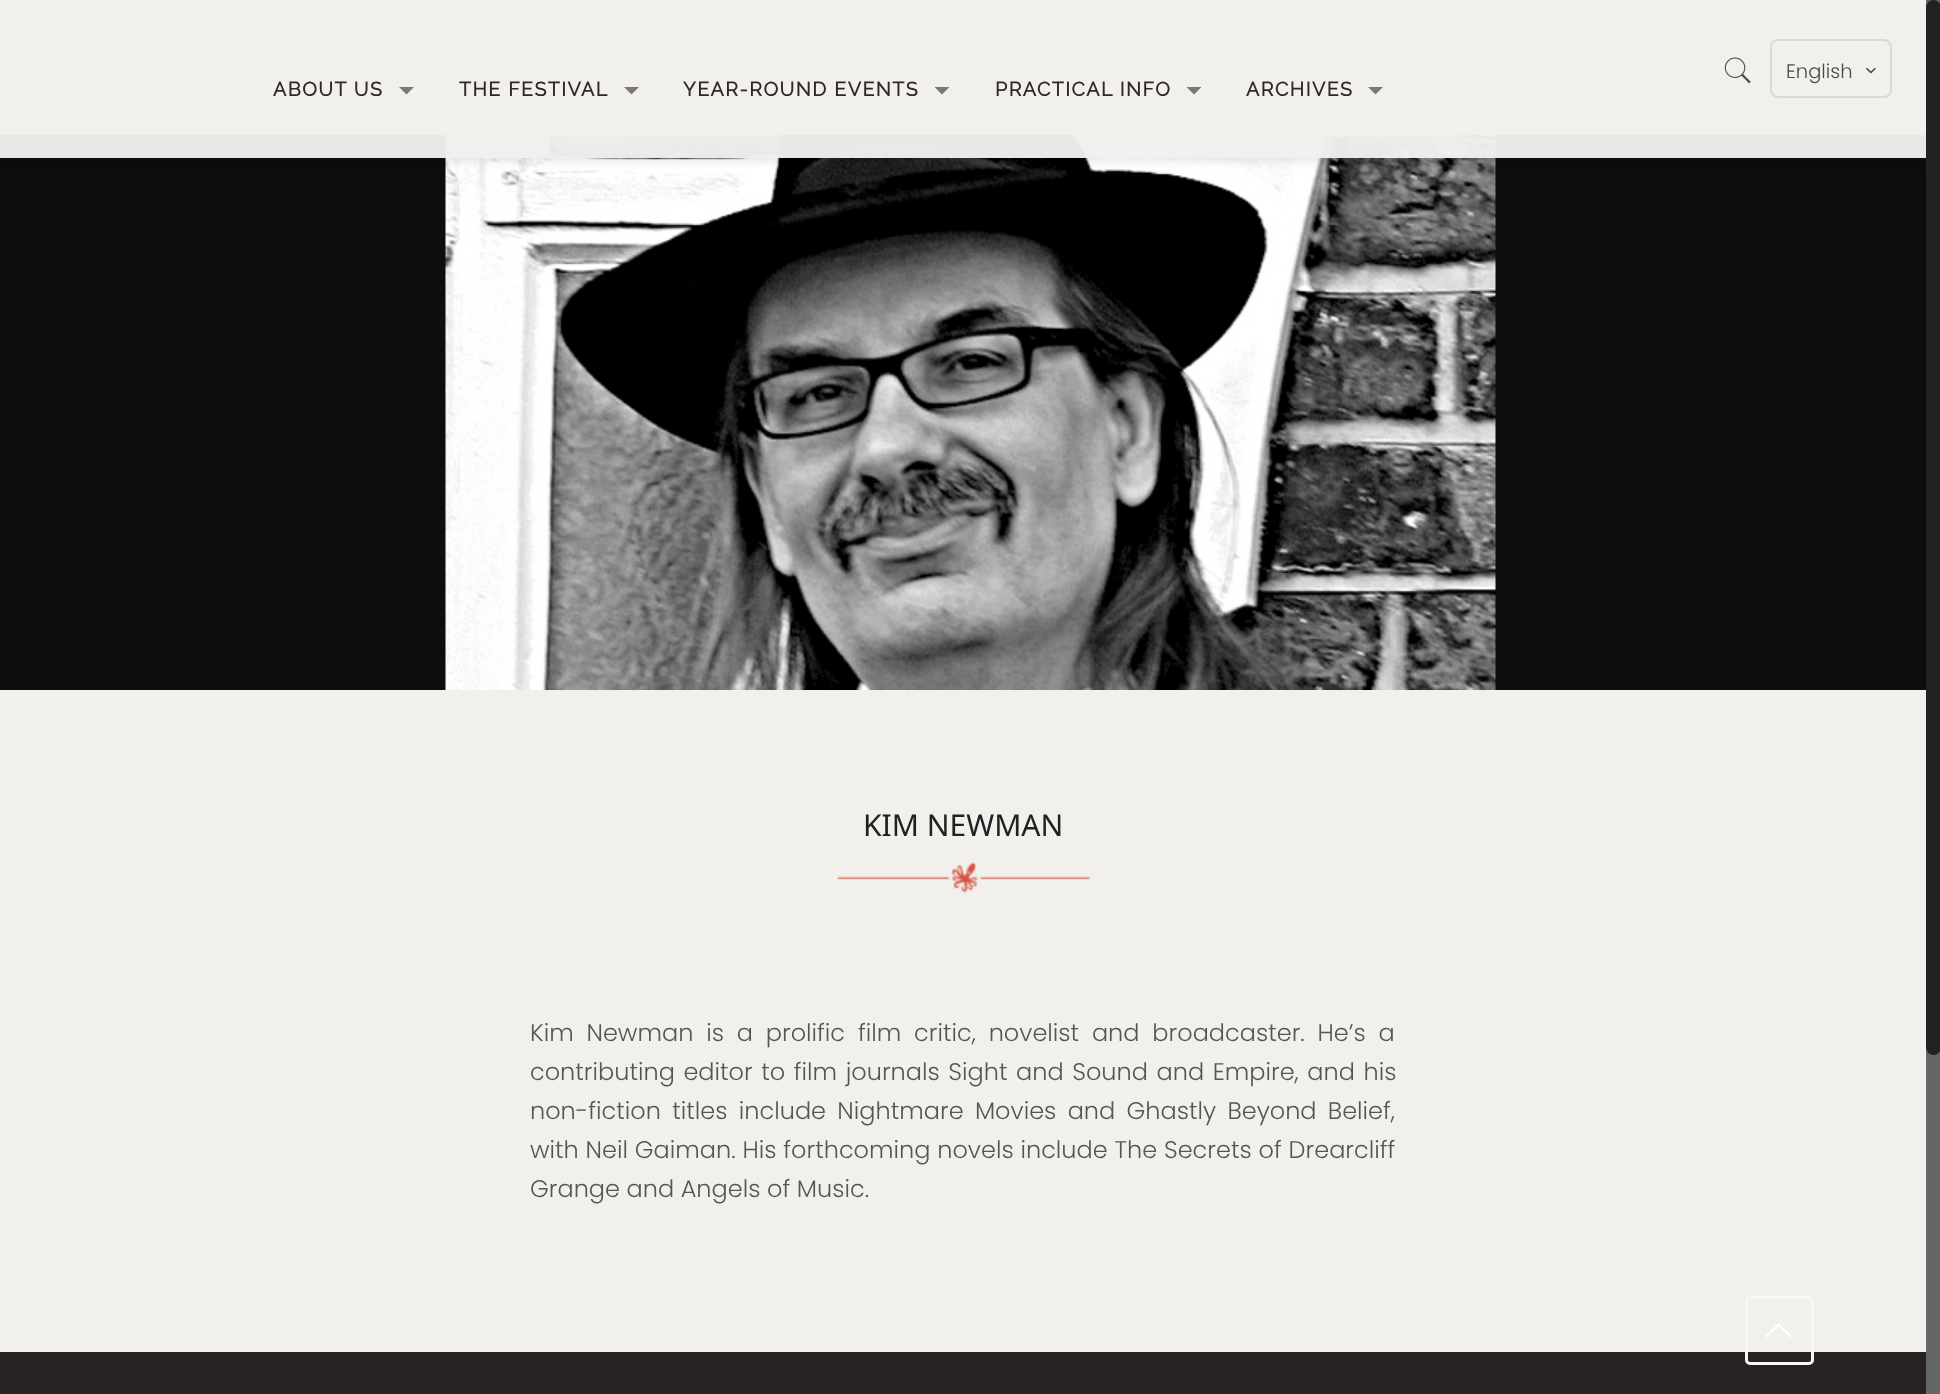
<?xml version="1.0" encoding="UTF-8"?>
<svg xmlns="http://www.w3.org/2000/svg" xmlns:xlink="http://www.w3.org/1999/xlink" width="1940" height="1394">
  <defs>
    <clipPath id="clip1"><path d="M 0 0 h 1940 v 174 h -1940 z m 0 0 h 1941 v 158 h -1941 z" clip-rule="evenodd" /></clipPath>
  </defs>
  <rect width="100%" height="100%" fill="#f1f0ed" />
  <rect y="135" width="1926" height="555" fill="#0f0c0c" />
  <image x="445" y="135" width="1051" height="555" xlink:href="image3.png" />
  <g clip-path="url(#clip1)">
    <rect y="3" width="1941" height="158" fill="#000000" fill-opacity="0.1" filter="blur(4px)" />
  </g>
  <rect y="135" width="1926" height="23" fill="#f1f0ed" fill-opacity="0.97" />
  <image x="1724" y="57" width="27" height="27" xlink:href="image1.png" />
  <rect x="1771" y="40" width="120" height="57" rx="7" fill="none" stroke="#dad9d6" stroke-width="2" />
  <image x="1866" y="67" width="10" height="7" xlink:href="image2.png" />
  <path d="M 399 87 h 15 l -7.5 7.5 z" fill="#7c7877" />
  <path d="M 624 87 h 15 l -7.5 7.5 z" fill="#7c7877" />
  <path d="M 934.5 87 h 15 l -7.5 7.5 z" fill="#7c7877" />
  <path d="M 1186.5 87 h 15 l -7.5 7.5 z" fill="#7c7877" />
  <path d="M 1368 87 h 15 l -7.5 7.5 z" fill="#7c7877" />
  <image x="837" y="862" width="254" height="31" xlink:href="image4.png" />
  <rect y="1352" width="1926" height="42" fill="#282222" />
  <rect x="1926" width="14" height="1394" fill="#666666" />
  <rect x="1926" width="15" height="1055" rx="7.5" fill="#222222" />
  <rect x="1746.5" y="1297.5" width="66" height="66" rx="3.5" fill="none" stroke="#f7f7f7" stroke-width="3" />
  <image x="1765" y="1323" width="27" height="15" xlink:href="image5.png" />
  <text x="1786" y="78" style="font-family: Poppins; font-size: 19.5px; font-weight: 300; fill: #494949">English</text>
  <text x="273" y="96" style="font-family: Raleway; font-size: 19.5px; font-weight: bold; letter-spacing: 1.5px; fill: #2e2828">ABOUT US</text>
  <text x="459" y="96" style="font-family: Raleway; font-size: 19.5px; font-weight: bold; letter-spacing: 1.5px; fill: #2e2828">THE FESTIVAL</text>
  <text x="683" y="96" style="font-family: Raleway; font-size: 19.5px; font-weight: bold; letter-spacing: 1.5px; fill: #2e2828">YEAR-ROUND EVENTS</text>
  <text x="995" y="96" style="font-family: Raleway; font-size: 19.5px; font-weight: bold; letter-spacing: 1.5px; fill: #2e2828">PRACTICAL INFO</text>
  <text x="1246" y="96" style="font-family: Raleway; font-size: 19.5px; font-weight: bold; letter-spacing: 1.5px; fill: #2e2828">ARCHIVES</text>
  <text x="863" y="836" style="font-family: Noto Sans; font-size: 30px; fill: #212121">KIM NEWMAN</text>
  <text x="530" y="1041" word-spacing="6.25" style="font-family: Poppins; font-size: 24px; font-weight: 300; fill: #555555">Kim Newman is a prolific film critic, novelist and broadcaster. He’s a</text>
  <text x="530" y="1080" word-spacing="2" style="font-family: Poppins; font-size: 24px; font-weight: 300; fill: #555555">contributing editor to film journals Sight and Sound and Empire, and his</text>
  <text x="530" y="1119" word-spacing="4.75" style="font-family: Poppins; font-size: 24px; font-weight: 300; fill: #555555">non-fiction titles include Nightmare Movies and Ghastly Beyond Belief,</text>
  <text x="530" y="1158" word-spacing="0.25" style="font-family: Poppins; font-size: 24px; font-weight: 300; fill: #555555">with Neil Gaiman. His forthcoming novels include The Secrets of Drearcliff</text>
  <text x="530" y="1197" style="font-family: Poppins; font-size: 24px; font-weight: 300; fill: #555555">Grange and Angels of Music.</text>
</svg>
